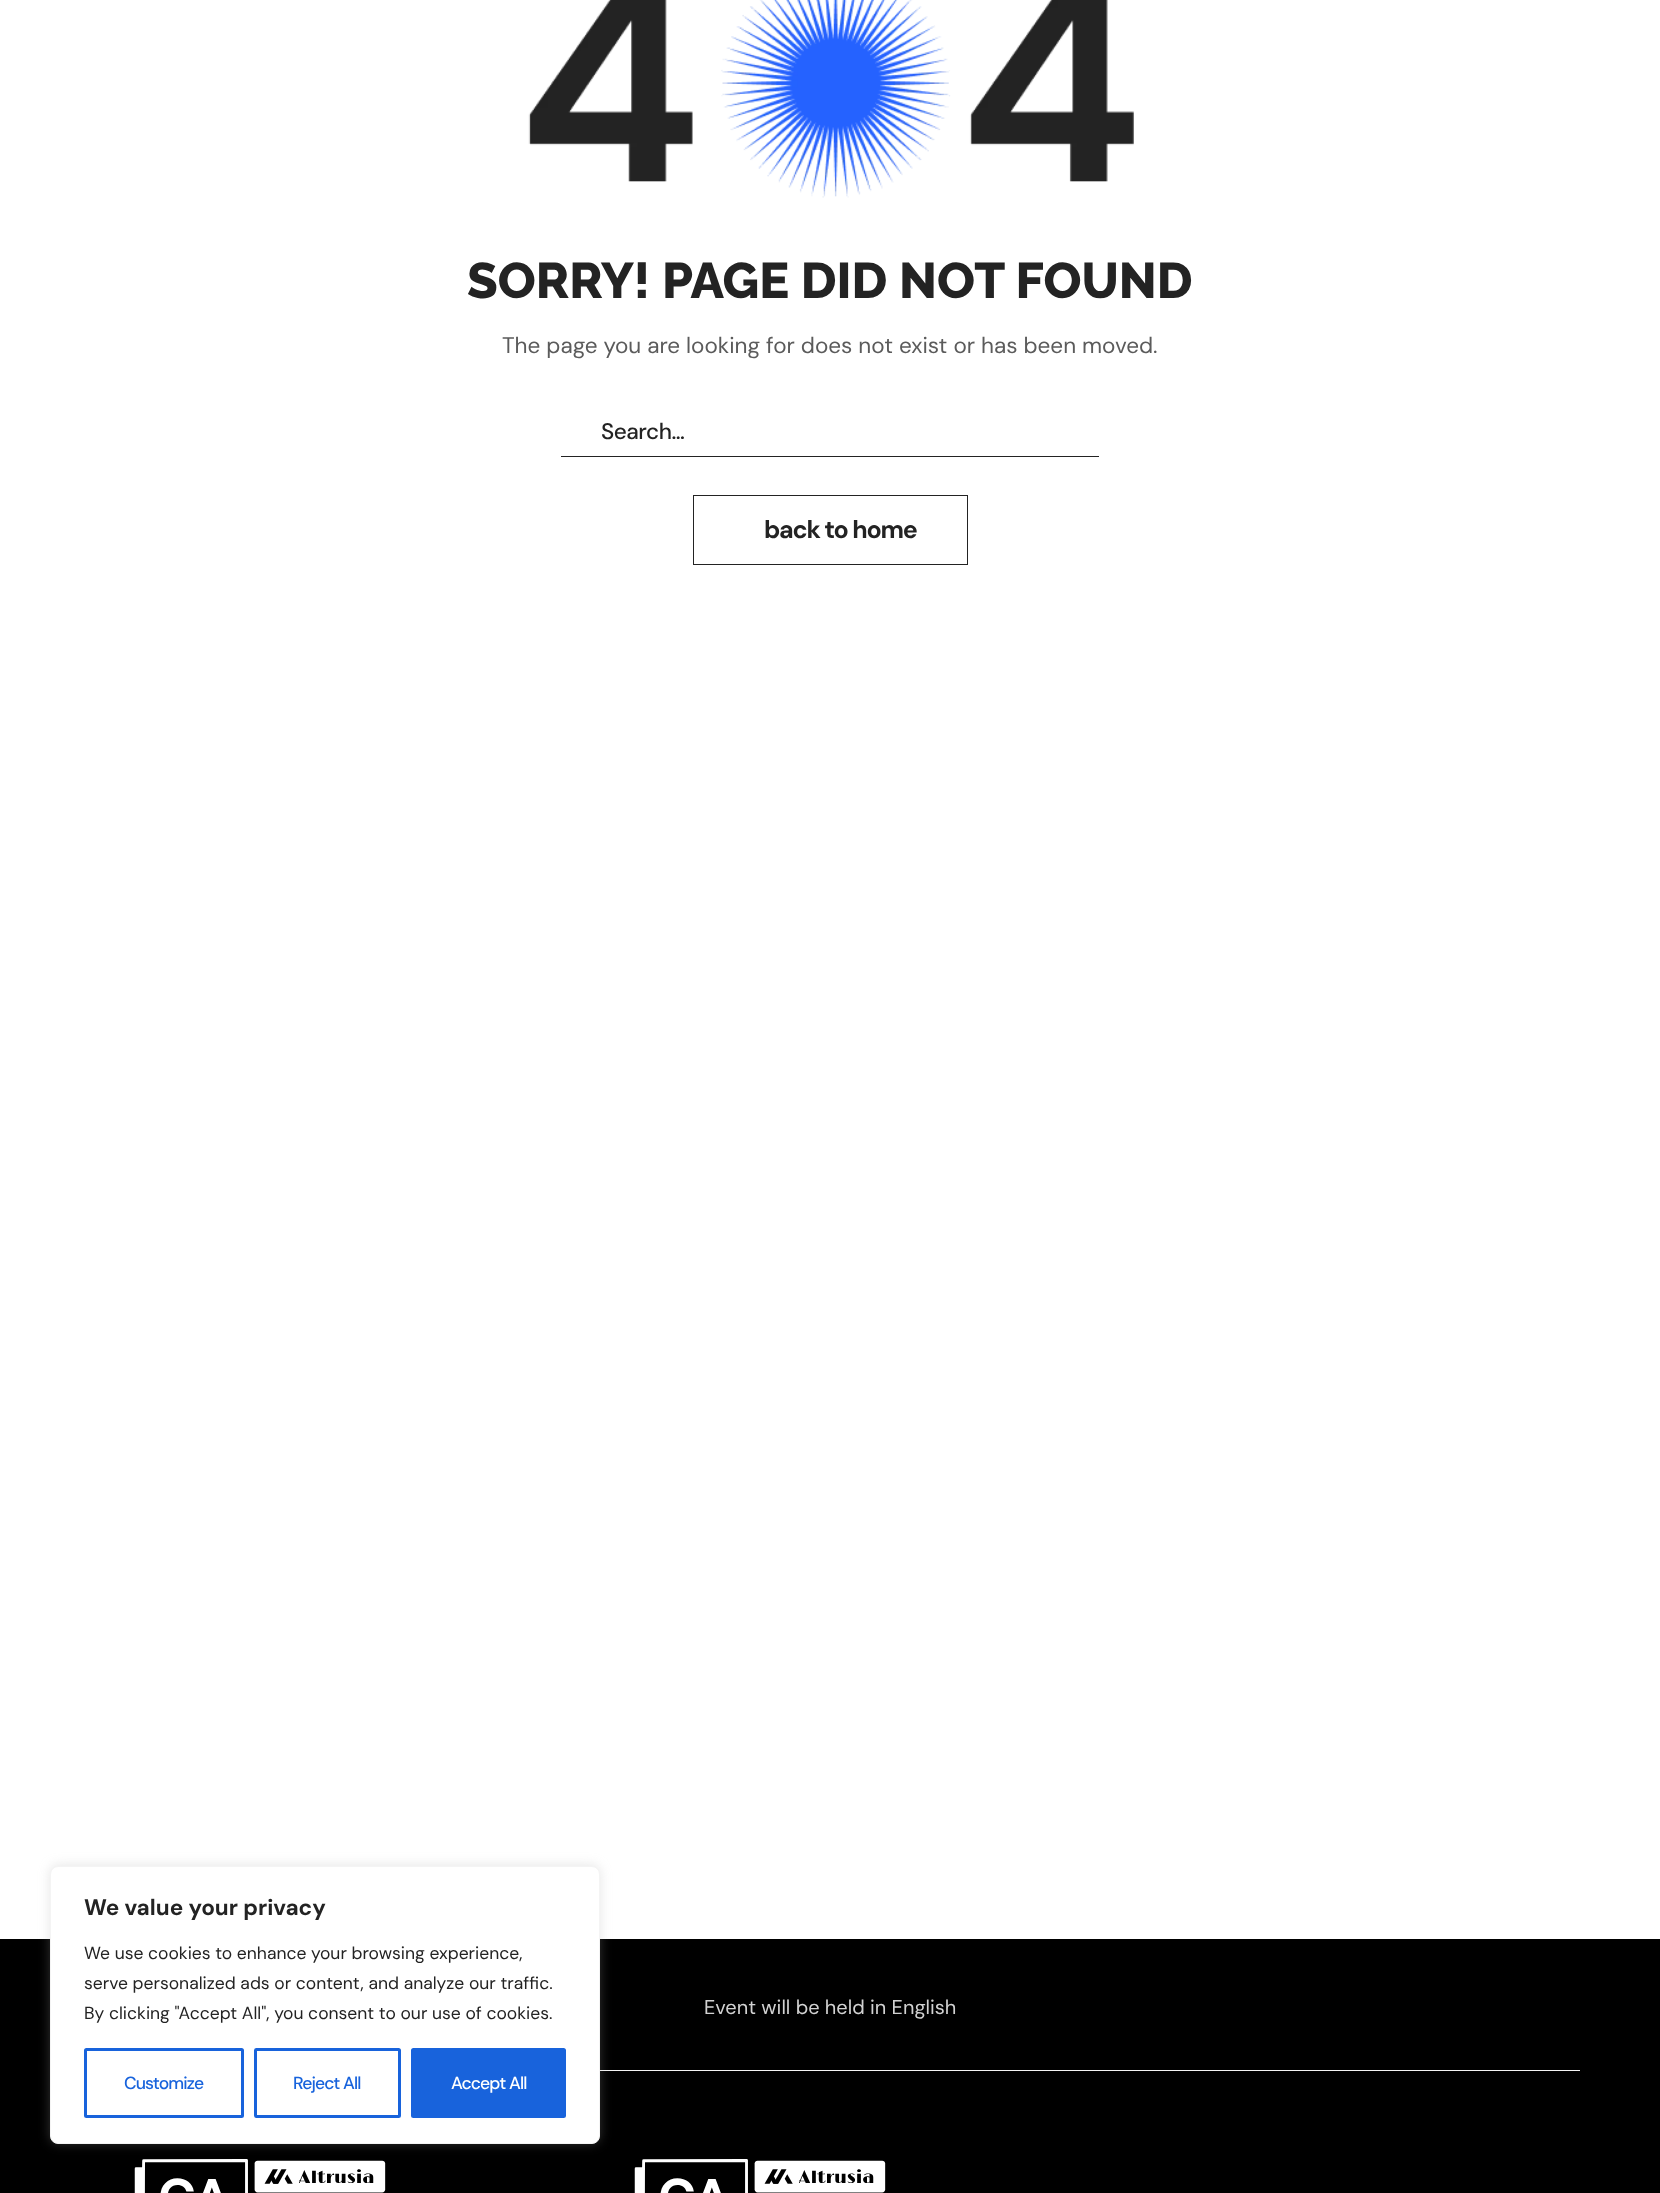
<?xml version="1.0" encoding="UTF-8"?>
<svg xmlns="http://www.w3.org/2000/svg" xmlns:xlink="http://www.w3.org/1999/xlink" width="1660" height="2193">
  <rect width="100%" height="100%" fill="#ffffff" />
  <image x="528" y="0" width="606" height="198" xlink:href="image1.png" />
  <rect x="561" y="456" width="538" height="1" fill="#232323" />
  <rect x="693.5" y="495.5" width="274" height="69" fill="none" stroke="#232323" />
  <rect y="1939" width="1660" height="254" fill="#000000" />
  <rect x="600" y="2070" width="980" height="1" fill="#f4f4f4" />
  <image x="134" y="2159" width="252" height="34" xlink:href="image2.png" />
  <rect x="50" y="1865" width="550" height="278" rx="8" fill="#acabab" fill-opacity="0.3" filter="blur(6px)" />
  <rect x="50.5" y="1866.5" width="549" height="277" rx="7.5" fill="#ffffff" stroke="#f4f4f4" />
  <rect x="85.5" y="2049.5" width="157" height="67" rx="1" fill="none" stroke="#1863dc" stroke-width="3" />
  <rect x="255.5" y="2049.5" width="144" height="67" rx="1" fill="none" stroke="#1863dc" stroke-width="3" />
  <rect x="412.5" y="2049.5" width="152" height="67" rx="1" fill="#1863dc" stroke="#1863dc" stroke-width="3" />
  <image x="634" y="2159" width="252" height="34" xlink:href="image3.png" />
  <text x="467" y="298" style="font-family: Raleway; font-size: 50px; font-weight: 800; fill: #232323">SORRY! PAGE DID NOT FOUND</text>
  <text x="502" y="353" style="font-family: DM Sans; font-size: 22.5px; fill: #5b5b5b">The page you are looking for does not exist or has been moved.</text>
  <text x="601" y="439" style="font-family: DM Sans; font-size: 22.5px; font-weight: 500; letter-spacing: -0.5px; fill: #232323">Search...</text>
  <text x="764" y="538" style="font-family: DM Sans; font-size: 25px; font-weight: bold; letter-spacing: -1.25px; fill: #232323">back to home</text>
  <text x="84" y="1915" style="font-family: DM Sans; font-size: 22.5px; font-weight: bold; fill: #232323">We value your privacy</text>
  <text x="84" y="1959" style="font-family: DM Sans; font-size: 17.5px; fill: #232323">We use cookies to enhance your browsing experience,</text>
  <text x="84" y="1989" style="font-family: DM Sans; font-size: 17.5px; fill: #232323">serve personalized ads or content, and analyze our traffic.</text>
  <text x="84" y="2019" style="font-family: DM Sans; font-size: 17.5px; fill: #232323">By clicking "Accept All", you consent to our use of cookies.</text>
  <text x="124" y="2089" style="font-family: DM Sans; font-size: 17.5px; font-weight: 500; letter-spacing: -0.9px; fill: #1863dc">Customize</text>
  <text x="293" y="2089" style="font-family: DM Sans; font-size: 17.5px; font-weight: 500; letter-spacing: -0.9px; fill: #1863dc">Reject All</text>
  <text x="451" y="2089" style="font-family: DM Sans; font-size: 17.5px; font-weight: 500; letter-spacing: -0.9px; fill: #ffffff">Accept All</text>
  <text x="704" y="2014" style="font-family: DM Sans; font-size: 20px; fill: #d2d2d2">Event will be held in English</text>
</svg>
